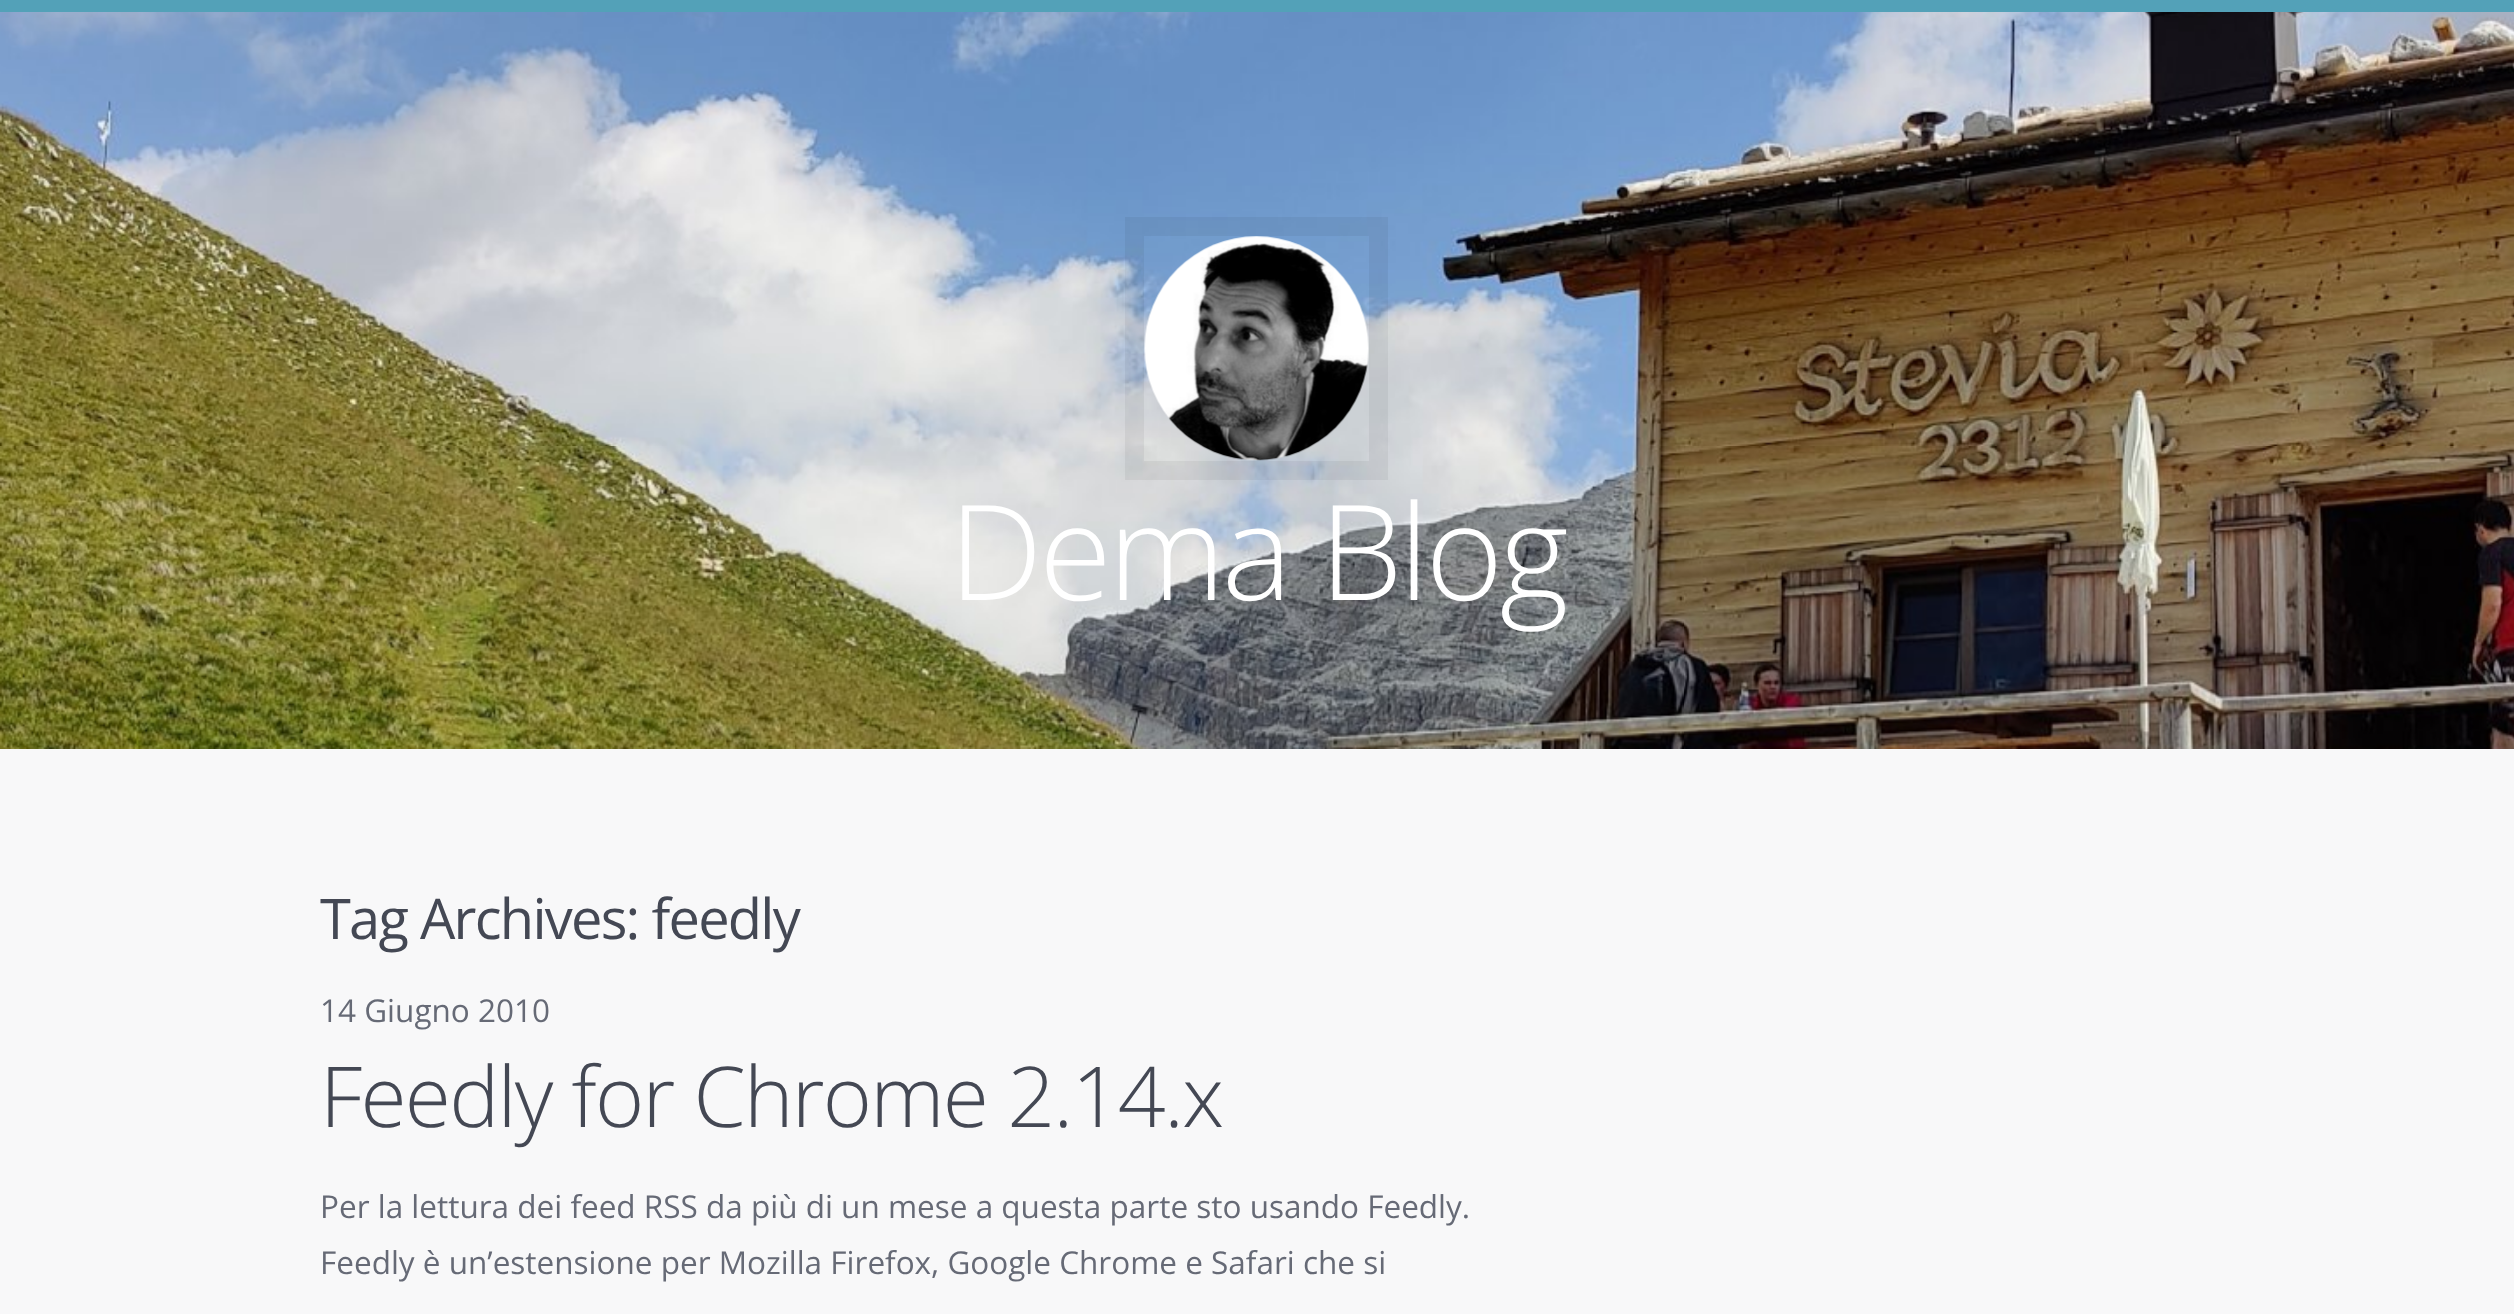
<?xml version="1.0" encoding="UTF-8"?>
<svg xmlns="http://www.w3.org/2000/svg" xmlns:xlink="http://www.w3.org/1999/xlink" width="2514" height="1314">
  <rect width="100%" height="100%" fill="#f8f8f9" />
  <image x="0" y="12" width="2514" height="737" xlink:href="image1.png" />
  <rect width="2514" height="12" fill="#53a1b8" />
  <rect x="1134.5" y="226.5" width="244" height="244" fill="none" stroke="#000000" stroke-opacity="0.05" stroke-width="19" />
  <image x="1144" y="236" width="225" height="225" xlink:href="image2.png" />
  <text x="949" y="600" style="font-family: Open Sans; font-size: 132.5px; font-weight: 300; letter-spacing: -3.5px; fill: #ffffff">Dema Blog</text>
  <text x="320" y="939" style="font-family: Open Sans; font-size: 56px; letter-spacing: -1.75px; fill: #444854">Tag Archives: feedly</text>
  <text x="320" y="1022" style="font-family: Open Sans; font-size: 31.5px; fill: #666a76">14 Giugno 2010</text>
  <text x="320" y="1127" style="font-family: Open Sans; font-size: 84px; font-weight: 300; letter-spacing: -1.75px; fill: #444854">Feedly for Chrome 2.14.x</text>
  <text x="320" y="1218" style="font-family: Open Sans; font-size: 31.5px; fill: #666a76">Per la lettura dei feed RSS da più di un mese a questa parte sto usando Feedly.</text>
  <text x="320" y="1274" style="font-family: Open Sans; font-size: 31.5px; fill: #666a76">Feedly è un’estensione per Mozilla Firefox, Google Chrome e Safari che si</text>
</svg>
